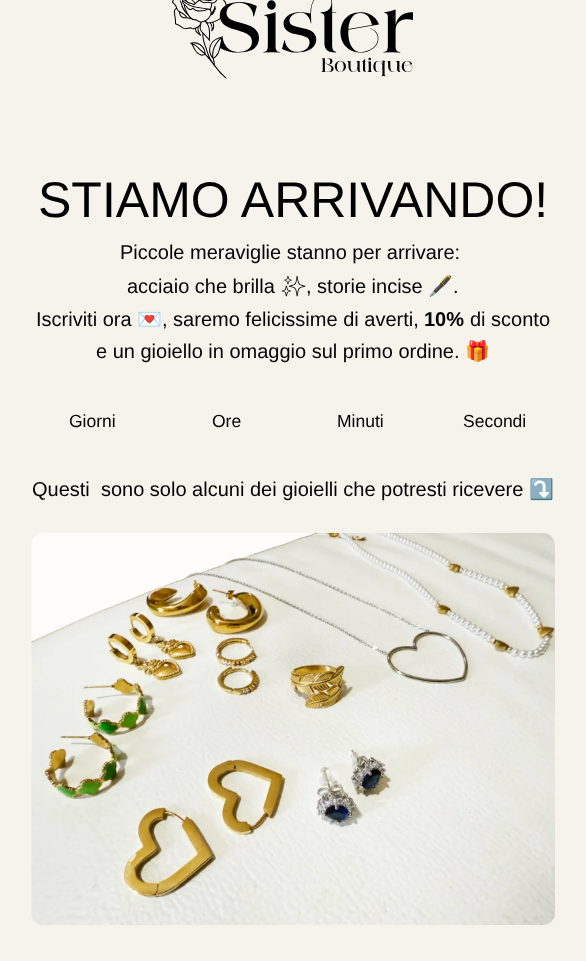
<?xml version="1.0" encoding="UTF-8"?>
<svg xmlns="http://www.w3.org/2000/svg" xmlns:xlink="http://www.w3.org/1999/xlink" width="586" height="961">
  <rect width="100%" height="100%" fill="#f6f3ed" />
  <image x="172" y="0" width="241" height="79" xlink:href="image1.png" />
  <image x="31" y="532" width="524" height="393" xlink:href="image2.png" />
  <text x="38" y="217" style="font-family: Liberation Sans; font-size: 50px; fill: #000000">STIAMO ARRIVANDO!</text>
  <text x="120" y="259" style="font-family: Liberation Sans; font-size: 20px; fill: #000000">Piccole meraviglie stanno per arrivare:</text>
  <text x="127" y="293" style="font-family: Liberation Sans; font-size: 20px; fill: #000000">acciaio che brilla</text>
  <text x="281" y="293" style="font-family: Noto Emoji; font-size: 20px; fill: #000000">✨</text>
  <text x="306" y="293" style="font-family: Liberation Sans; font-size: 20px; fill: #000000">, storie incise</text>
  <text x="428" y="293" style="font-family: Noto Color Emoji; font-size: 20px; fill: #000000">🖋</text>
  <text x="453" y="293" style="font-family: Liberation Sans; font-size: 20px; fill: #000000">.</text>
  <text x="36" y="326" style="font-family: Liberation Sans; font-size: 20px; fill: #000000">Iscriviti ora</text>
  <text x="137" y="326" style="font-family: Noto Color Emoji; font-size: 20px; fill: #000000">💌</text>
  <text x="162" y="326" style="font-family: Liberation Sans; font-size: 20px; fill: #000000">, saremo felicissime di averti,</text>
  <text x="424" y="326" style="font-family: Liberation Sans; font-size: 20px; font-weight: bold; fill: #000000">10%</text>
  <text x="470" y="326" style="font-family: Liberation Sans; font-size: 20px; fill: #000000">di sconto</text>
  <text x="96" y="358" style="font-family: Liberation Sans; font-size: 20px; fill: #000000">e un gioiello in omaggio sul primo ordine.</text>
  <text x="465" y="358" style="font-family: Noto Color Emoji; font-size: 20px; fill: #000000">🎁</text>
  <text x="69" y="427" style="font-family: Liberation Sans; font-size: 17.5px; fill: #000000">Giorni</text>
  <text x="212" y="427" style="font-family: Liberation Sans; font-size: 17.5px; fill: #000000">Ore</text>
  <text x="337" y="427" style="font-family: Liberation Sans; font-size: 17.5px; fill: #000000">Minuti</text>
  <text x="463" y="427" style="font-family: Liberation Sans; font-size: 17.5px; fill: #000000">Secondi</text>
  <text x="32" y="496" style="font-family: Liberation Sans; font-size: 20px; fill: #000000" xml:space="preserve">Questi  sono solo alcuni dei gioielli che potresti ricevere</text>
  <text x="529" y="496" style="font-family: Noto Color Emoji; font-size: 20px; fill: #000000">⤵️</text>
</svg>
